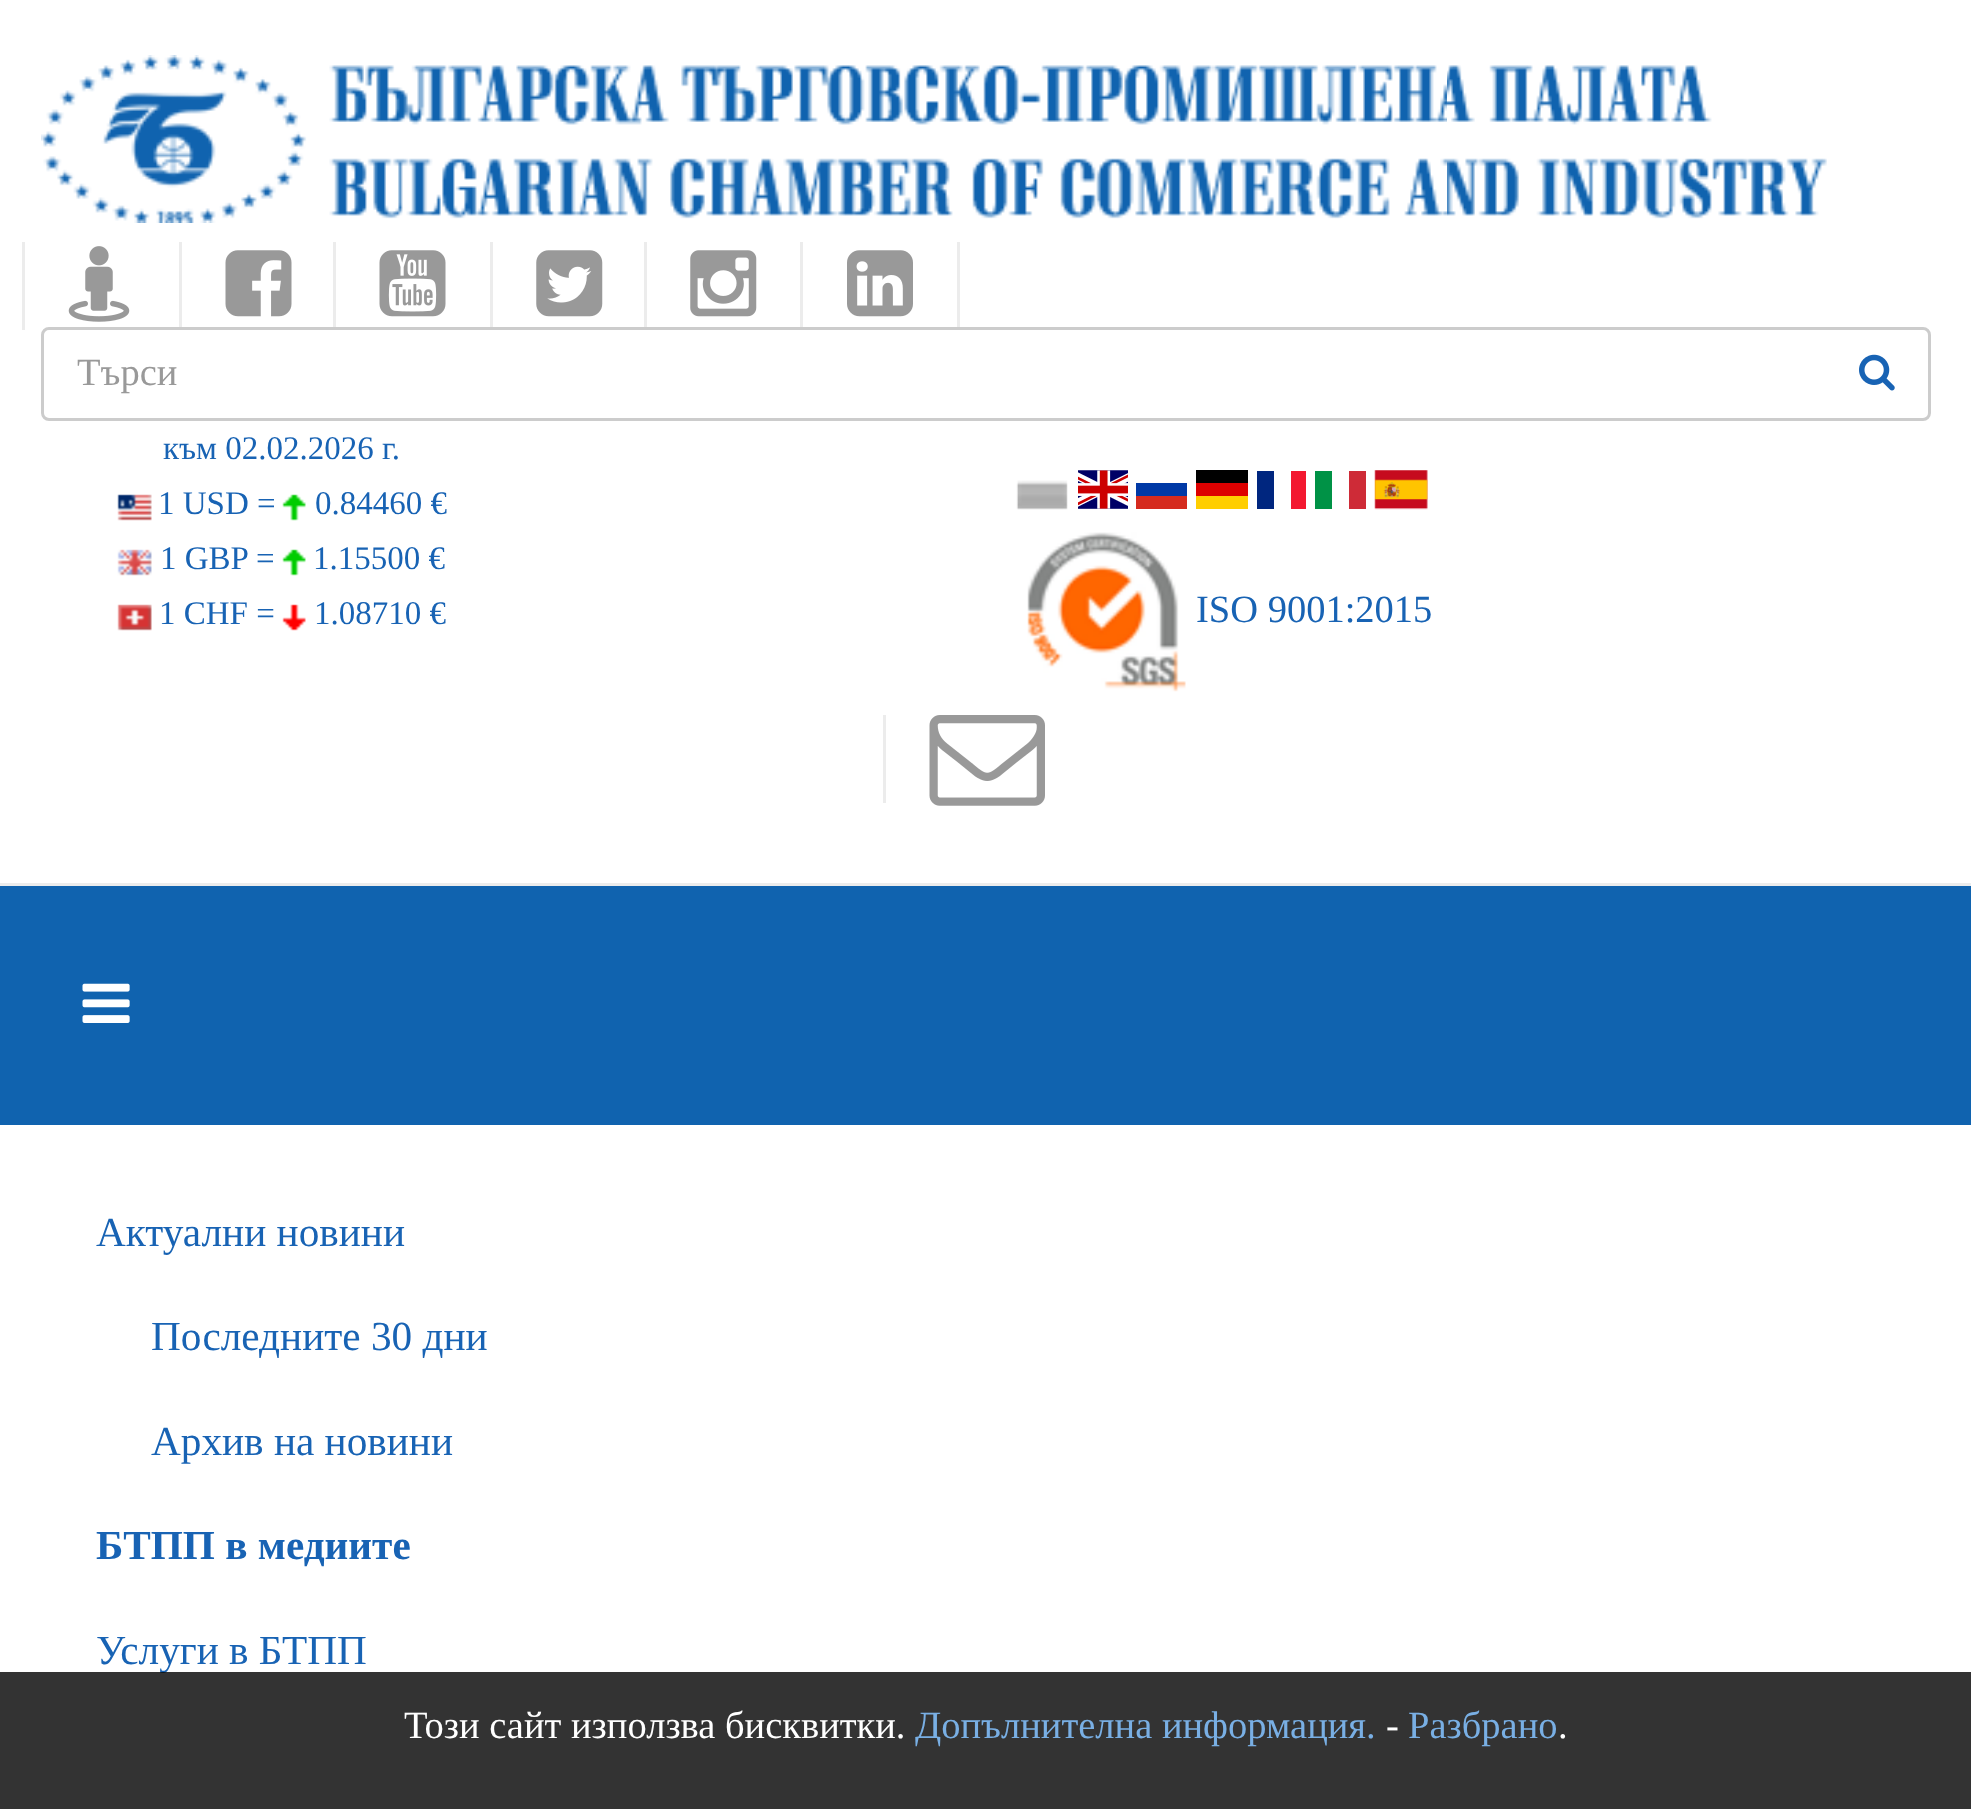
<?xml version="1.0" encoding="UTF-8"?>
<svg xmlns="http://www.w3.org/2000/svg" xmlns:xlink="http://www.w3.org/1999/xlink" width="1971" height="1809">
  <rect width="100%" height="100%" fill="#ffffff" />
  <rect y="883" width="1971" height="3" fill="#ececec" />
  <image x="41" y="55" width="1786" height="168" xlink:href="image1.png" />
  <rect x="22" y="242" width="3" height="88" fill="#ececec" />
  <image x="68" y="246" width="62" height="76" xlink:href="image2.png" />
  <rect x="179" y="242" width="3" height="88" fill="#ececec" />
  <image x="225" y="250" width="67" height="67" xlink:href="image3.png" />
  <rect x="333" y="242" width="3" height="88" fill="#ececec" />
  <image x="379" y="250" width="67" height="67" xlink:href="image4.png" />
  <rect x="490" y="242" width="3" height="88" fill="#ececec" />
  <image x="536" y="250" width="67" height="67" xlink:href="image5.png" />
  <rect x="644" y="242" width="3" height="88" fill="#ececec" />
  <image x="690" y="250" width="67" height="67" xlink:href="image6.png" />
  <rect x="957" y="242" width="3" height="88" fill="#ececec" />
  <rect x="800" y="242" width="3" height="88" fill="#ececec" />
  <image x="847" y="250" width="66" height="67" xlink:href="image7.png" />
  <rect x="42.5" y="328.5" width="1887" height="91" rx="6.5" fill="#ffffff" stroke="#cccccc" stroke-width="3" />
  <image x="1859" y="354" width="36" height="37" xlink:href="image8.png" />
  <image x="117" y="494" width="35" height="27" xlink:href="image9.png" />
  <image x="282" y="494" width="24" height="27" xlink:href="image10.png" />
  <image x="117" y="549" width="35" height="27" xlink:href="image11.png" />
  <image x="282" y="549" width="24" height="27" xlink:href="image10.png" />
  <image x="117" y="604" width="35" height="27" xlink:href="image12.png" />
  <image x="282" y="604" width="24" height="27" xlink:href="image13.png" />
  <image x="1016" y="480" width="52" height="30" xlink:href="image14.png" />
  <image x="1078" y="470" width="50" height="39" xlink:href="image15.png" />
  <rect x="1136" y="483" width="51" height="13" fill="#0039a6" />
  <rect x="1136" y="496" width="51" height="13" fill="#d52b1e" />
  <rect x="1196" y="496" width="52" height="13" fill="#ffce00" />
  <rect x="1196" y="470" width="52" height="13" fill="#000000" />
  <rect x="1196" y="483" width="52" height="13" fill="#dd0000" />
  <rect x="1257" y="471" width="17" height="38" fill="#00267f" />
  <rect x="1291" y="471" width="15" height="38" fill="#f31830" />
  <rect x="1315" y="471" width="17" height="38" fill="#009246" />
  <rect x="1349" y="471" width="17" height="38" fill="#ce2b37" />
  <image x="1374" y="470" width="54" height="40" xlink:href="image16.png" />
  <image x="1027" y="532" width="159" height="160" xlink:href="image17.png" />
  <rect x="883" y="715" width="3" height="88" fill="#ececec" />
  <image x="929" y="715" width="116" height="91" xlink:href="image18.png" />
  <rect y="886" width="1971" height="239" fill="#1063af" />
  <image x="82" y="983" width="48" height="40" xlink:href="image19.png" />
  <text x="77" y="385" style="font-family: Liberation Serif; font-size: 38.5px; fill: #999999">Търси</text>
  <text x="163" y="459" style="font-family: Liberation Serif; font-size: 33px; fill: #1863b4">към 02.02.2026 г.</text>
  <text x="158" y="514" style="font-family: Liberation Serif; font-size: 33px; fill: #1863b4">1 USD =</text>
  <text x="315" y="514" style="font-family: Liberation Serif; font-size: 33px; fill: #1863b4">0.84460 €</text>
  <text x="160" y="569" style="font-family: Liberation Serif; font-size: 33px; fill: #1863b4">1 GBP =</text>
  <text x="313" y="569" style="font-family: Liberation Serif; font-size: 33px; fill: #1863b4">1.15500 €</text>
  <text x="159" y="624" style="font-family: Liberation Serif; font-size: 33px; fill: #1863b4">1 CHF =</text>
  <text x="314" y="624" style="font-family: Liberation Serif; font-size: 33px; fill: #1863b4">1.08710 €</text>
  <text x="1196" y="622" style="font-family: Liberation Serif; font-size: 38.5px; fill: #1863b4">ISO 9001:2015</text>
  <text x="96" y="1246" style="font-family: Liberation Serif; font-size: 41.25px; fill: #1863b4">Актуални новини</text>
  <text x="151" y="1350" style="font-family: Liberation Serif; font-size: 41.25px; fill: #1863b4">Последните 30 дни</text>
  <text x="151" y="1455" style="font-family: Liberation Serif; font-size: 41.25px; fill: #1863b4">Архив на новини</text>
  <text x="96" y="1559" style="font-family: Liberation Serif; font-size: 41.25px; font-weight: bold; fill: #1863b4">БTПП в медиите</text>
  <text x="96" y="1664" style="font-family: Liberation Serif; font-size: 41.25px; fill: #1863b4">Услуги в БТПП</text>
  <rect y="1672" width="1971" height="137" fill="#000000" fill-opacity="0.8" />
  <text x="404" y="1738" style="font-family: Liberation Serif; font-size: 38.5px; fill: #ffffff">Този сайт използва бисквитки.</text>
  <text x="915" y="1738" style="font-family: Liberation Serif; font-size: 38.5px; fill: #79afe4">Допълнителна информация.</text>
  <text x="1386" y="1738" style="font-family: Liberation Serif; font-size: 38.5px; fill: #ffffff">-</text>
  <text x="1408" y="1738" style="font-family: Liberation Serif; font-size: 38.5px; fill: #79afe4">Разбрано</text>
  <text x="1558" y="1738" style="font-family: Liberation Serif; font-size: 38.5px; fill: #ffffff">.</text>
</svg>
